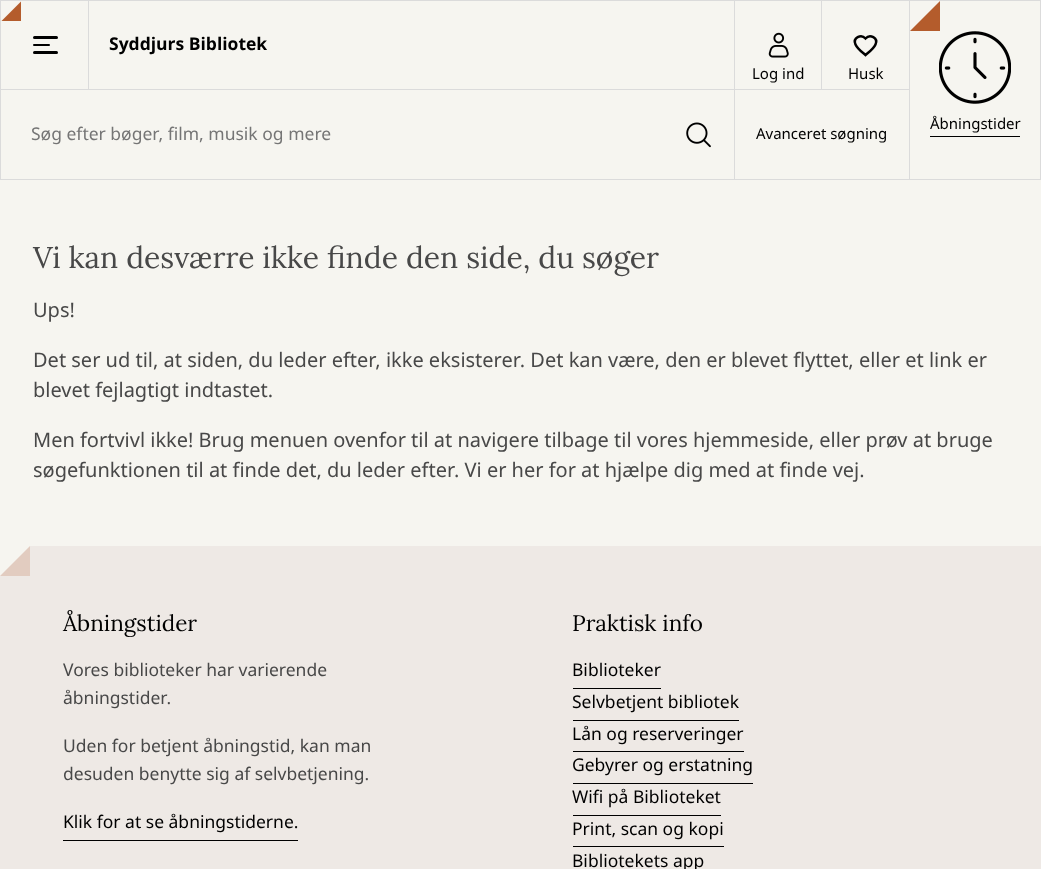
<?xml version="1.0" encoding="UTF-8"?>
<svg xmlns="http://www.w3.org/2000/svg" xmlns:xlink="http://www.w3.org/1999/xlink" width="1041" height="869">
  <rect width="100%" height="100%" fill="#f6f5f0" />
  <rect x="0.5" y="0.5" width="1040" height="179" fill="none" stroke="#dbdbdb" />
  <rect x="1" y="89" width="908" height="1" fill="#dbdbdb" />
  <rect x="88" y="1" width="1" height="88" fill="#dbdbdb" />
  <path d="M 21 1.5 v 19.5 h -19.5 z" fill="#b45c2c" />
  <rect x="33" y="36" width="25" height="3" rx="1.5" fill="#000000" />
  <rect x="33" y="44" width="17" height="2" rx="1" fill="#000000" />
  <rect x="33" y="51" width="25" height="3" rx="1.5" fill="#000000" />
  <rect x="734" y="1" width="1" height="88" fill="#dbdbdb" />
  <image x="768" y="32" width="21" height="26" xlink:href="image1.png" />
  <rect x="821" y="1" width="1" height="88" fill="#dbdbdb" />
  <path d="M 865.5 55 c -3.5 -3 -8 -6 -10 -10.5 c -3 -6.5 5.5 -11 10 -6 c 4.5 -5 13 -0.5 10 6 c -2 4.5 -6.5 7.5 -10 10.5 z" fill="none" stroke="#000000" stroke-width="2.5" />
  <image x="686" y="122" width="25" height="26" xlink:href="image2.png" />
  <rect x="734" y="90" width="1" height="89" fill="#dbdbdb" />
  <rect x="909" y="1" width="1" height="178" fill="#dbdbdb" />
  <path d="M 940 1 v 30 h -30 z" fill="#b45c2c" />
  <image x="939" y="31" width="72" height="73" xlink:href="image3.png" />
  <rect x="930" y="136" width="90" height="1" fill="#000000" />
  <path d="M 1041 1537 v -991 h -1011 l -30 30 v 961 z" fill="#eee9e5" />
  <path d="M 0 576 h 30 v -30 z" fill="#b45c2c" fill-opacity="0.2" />
  <rect x="63" y="840" width="235" height="1" fill="#000000" />
  <rect x="573" y="688" width="88" height="1" fill="#000000" />
  <rect x="573" y="720" width="166" height="1" fill="#000000" />
  <rect x="573" y="751" width="171" height="1" fill="#000000" />
  <rect x="573" y="783" width="180" height="1" fill="#000000" />
  <rect x="573" y="815" width="148" height="1" fill="#000000" />
  <rect x="573" y="846" width="151" height="1" fill="#000000" />
  <text x="109" y="50" style="font-family: Noto Sans; font-size: 17.5px; font-weight: bold; fill: #000000">Syddjurs Bibliotek</text>
  <text x="752" y="79" style="font-family: Noto Sans; font-size: 15px; fill: #000000">Log ind</text>
  <text x="848" y="79" style="font-family: Noto Sans; font-size: 15px; fill: #000000">Husk</text>
  <text x="31" y="140" style="font-family: Noto Sans; font-size: 17.5px; fill: #757575">Søg efter bøger, film, musik og mere</text>
  <text x="756" y="139" style="font-family: Noto Sans; font-size: 15px; fill: #000000">Avanceret søgning</text>
  <text x="930" y="129" style="font-family: Noto Sans; font-size: 15px; fill: #000000">Åbningstider</text>
  <text x="33" y="268" style="font-family: Lora; font-size: 30px; fill: #484848">Vi kan desværre ikke finde den side, du søger</text>
  <text x="33" y="317" style="font-family: Noto Sans; font-size: 20px; fill: #484848">Ups!</text>
  <text x="33" y="367" style="font-family: Noto Sans; font-size: 20px; fill: #484848">Det ser ud til, at siden, du leder efter, ikke eksisterer. Det kan være, den er blevet flyttet, eller et link er</text>
  <text x="33" y="397" style="font-family: Noto Sans; font-size: 20px; fill: #484848">blevet fejlagtigt indtastet.</text>
  <text x="33" y="447" style="font-family: Noto Sans; font-size: 20px; fill: #484848">Men fortvivl ikke! Brug menuen ovenfor til at navigere tilbage til vores hjemmeside, eller prøv at bruge</text>
  <text x="33" y="477" style="font-family: Noto Sans; font-size: 20px; fill: #484848">søgefunktionen til at finde det, du leder efter. Vi er her for at hjælpe dig med at finde vej.</text>
  <text x="63" y="631" style="font-family: Lora; font-size: 22.5px; fill: #000000">Åbningstider</text>
  <text x="63" y="676" style="font-family: Noto Sans; font-size: 17.5px; fill: #484848">Vores biblioteker har varierende</text>
  <text x="63" y="704" style="font-family: Noto Sans; font-size: 17.5px; fill: #484848">åbningstider.</text>
  <text x="63" y="752" style="font-family: Noto Sans; font-size: 17.5px; fill: #484848">Uden for betjent åbningstid, kan man</text>
  <text x="63" y="780" style="font-family: Noto Sans; font-size: 17.5px; fill: #484848">desuden benytte sig af selvbetjening.</text>
  <text x="63" y="828" style="font-family: Noto Sans; font-size: 17.5px; fill: #000000">Klik for at se åbningstiderne.</text>
  <text x="572" y="631" style="font-family: Lora; font-size: 22.5px; fill: #000000">Praktisk info</text>
  <text x="572" y="676" style="font-family: Noto Sans; font-size: 17.5px; fill: #000000">Biblioteker</text>
  <text x="572" y="708" style="font-family: Noto Sans; font-size: 17.5px; fill: #000000">Selvbetjent bibliotek</text>
  <text x="572" y="740" style="font-family: Noto Sans; font-size: 17.5px; fill: #000000">Lån og reserveringer</text>
  <text x="572" y="771" style="font-family: Noto Sans; font-size: 17.5px; fill: #000000">Gebyrer og erstatning</text>
  <text x="572" y="803" style="font-family: Noto Sans; font-size: 17.5px; fill: #000000">Wifi på Biblioteket</text>
  <text x="572" y="835" style="font-family: Noto Sans; font-size: 17.5px; fill: #000000">Print, scan og kopi</text>
  <text x="572" y="867" style="font-family: Noto Sans; font-size: 17.5px; fill: #000000">Bibliotekets app</text>
</svg>
